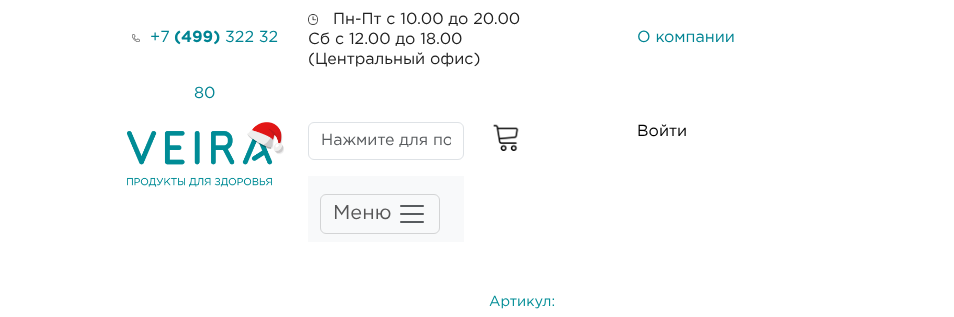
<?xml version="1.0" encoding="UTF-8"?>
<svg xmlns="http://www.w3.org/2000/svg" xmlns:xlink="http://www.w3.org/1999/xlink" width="954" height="317">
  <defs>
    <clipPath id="clip1"><rect x="321" y="133" width="130" height="16" /></clipPath>
  </defs>
  <rect width="100%" height="100%" fill="#ffffff" />
  <image x="132" y="34" width="8" height="8" xlink:href="image1.png" />
  <image x="308" y="14" width="10" height="11" xlink:href="image2.png" />
  <image x="127" y="122" width="157" height="65" xlink:href="image3.png" />
  <image x="493" y="124" width="26" height="27" xlink:href="image4.png" />
  <rect x="308.5" y="122.5" width="155" height="37" rx="5.5" fill="none" stroke="#dee2e6" />
  <rect x="308" y="176" width="156" height="66" fill="#f8f9fa" />
  <rect x="320.5" y="194.5" width="119" height="39" rx="5.5" fill="none" stroke="#d3d4d5" />
  <image x="400" y="205" width="24" height="18" xlink:href="image5.png" />
  <text x="150" y="42" style="font-family: Gotham; font-size: 16px; fill: #008493">+7</text>
  <text x="174" y="42" style="font-family: Gotham; font-size: 16px; font-weight: bold; fill: #008493">(499)</text>
  <text x="225" y="42" style="font-family: Gotham; font-size: 16px; fill: #008493">322 32</text>
  <text x="194" y="98" style="font-family: Gotham; font-size: 16px; fill: #008493">80</text>
  <text x="333" y="24" style="font-family: Gotham; font-size: 16px; fill: #212121">Пн-Пт с 10.00 до 20.00</text>
  <text x="308" y="44" style="font-family: Gotham; font-size: 16px; fill: #212121">Сб с 12.00 до 18.00</text>
  <text x="308" y="64" style="font-family: Gotham; font-size: 16px; fill: #212121">(Центральный офис)</text>
  <text x="637" y="42" style="font-family: Gotham; font-size: 16px; fill: #008493">О компании</text>
  <text x="637" y="136" style="font-family: Gotham; font-size: 16px; fill: #000000">Войти</text>
  <g clip-path="url(#clip1)">
    <text x="321" y="145" style="font-family: Gotham; font-size: 16px; fill: #595c5f">Нажмите для по</text>
  </g>
  <text x="333" y="219" style="font-family: Gotham; font-size: 20px; fill: #575758">Меню</text>
  <text x="489" y="306" style="font-family: Gotham; font-size: 14.5px; fill: #018d96">Артикул:</text>
</svg>
